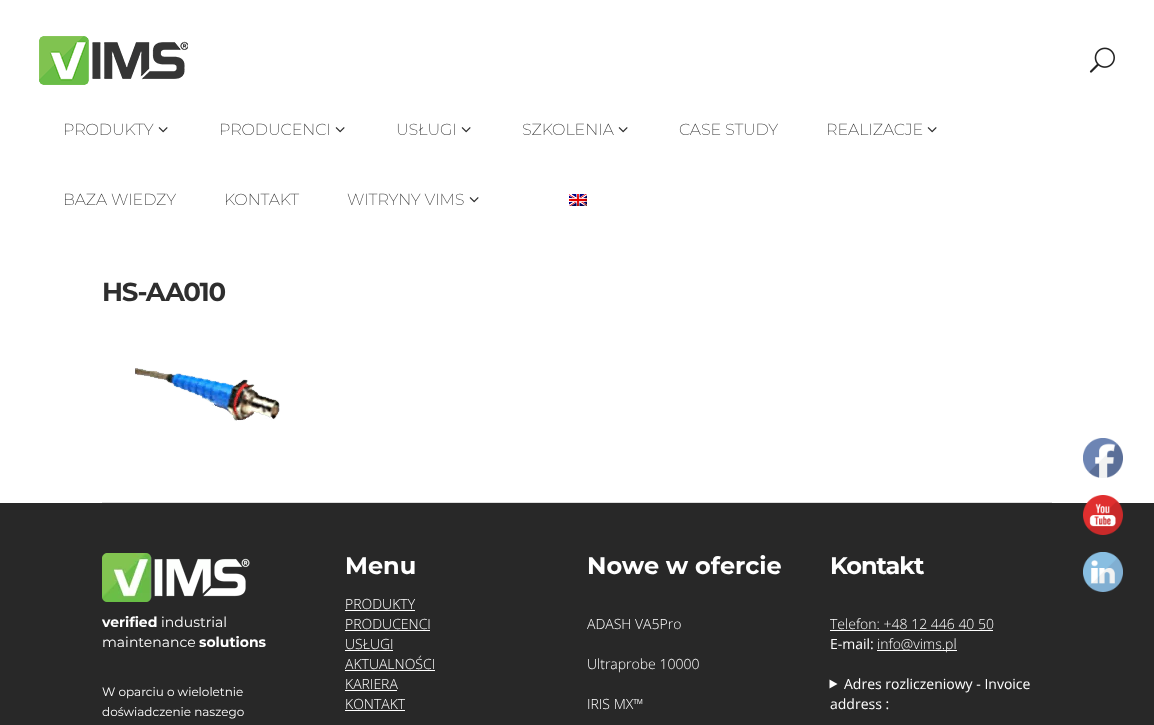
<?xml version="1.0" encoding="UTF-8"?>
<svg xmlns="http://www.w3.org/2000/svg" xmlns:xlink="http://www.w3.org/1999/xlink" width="1154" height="725">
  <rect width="100%" height="100%" fill="#ffffff" />
  <image x="39" y="36" width="149" height="49" xlink:href="image1.png" />
  <image x="1089" y="47" width="26" height="26" xlink:href="image2.png" />
  <image x="158" y="127" width="10" height="6" xlink:href="image3.png" />
  <image x="335" y="127" width="10" height="6" xlink:href="image3.png" />
  <image x="461" y="127" width="10" height="6" xlink:href="image3.png" />
  <image x="618" y="127" width="10" height="6" xlink:href="image3.png" />
  <image x="927" y="127" width="10" height="6" xlink:href="image3.png" />
  <image x="469" y="197" width="10" height="6" xlink:href="image3.png" />
  <image x="569" y="194" width="18" height="12" xlink:href="image4.png" />
  <rect x="102" y="502" width="950" height="1" fill="#dddddd" />
  <image x="135" y="368" width="145" height="53" xlink:href="image5.png" />
  <rect y="503" width="1154" height="222" fill="#282828" />
  <image x="102" y="553" width="148" height="49" xlink:href="image6.png" />
  <rect x="345" y="610" width="70" height="1" fill="#ffffff" />
  <rect x="345" y="630" width="85" height="1" fill="#ffffff" />
  <rect x="345" y="650" width="48" height="1" fill="#ffffff" />
  <rect x="345" y="670" width="90" height="1" fill="#ffffff" />
  <rect x="345" y="690" width="52" height="1" fill="#ffffff" />
  <rect x="345" y="710" width="60" height="1" fill="#ffffff" />
  <rect x="830" y="630" width="163" height="1" fill="#ffffff" />
  <rect x="877" y="650" width="80" height="1" fill="#ffffff" />
  <path d="M 829.5 679.5 l 8 4.5 l -8 4.5 z" fill="#ffffff" />
  <image x="1083" y="438" width="40" height="40" xlink:href="image7.png" />
  <image x="1083" y="495" width="40" height="40" xlink:href="image8.png" />
  <image x="1083" y="552" width="40" height="40" xlink:href="image9.png" />
  <text x="63" y="135" style="font-family: Montserrat; font-size: 16px; font-weight: 200; letter-spacing: -0.1px; fill: #2e2e2e">PRODUKTY</text>
  <text x="219" y="135" style="font-family: Montserrat; font-size: 16px; font-weight: 200; letter-spacing: -0.1px; fill: #2e2e2e">PRODUCENCI</text>
  <text x="396" y="135" style="font-family: Montserrat; font-size: 16px; font-weight: 200; letter-spacing: -0.1px; fill: #2e2e2e">USŁUGI</text>
  <text x="522" y="135" style="font-family: Montserrat; font-size: 16px; font-weight: 200; letter-spacing: -0.1px; fill: #2e2e2e">SZKOLENIA</text>
  <text x="679" y="135" style="font-family: Montserrat; font-size: 16px; font-weight: 200; letter-spacing: -0.1px; fill: #2e2e2e">CASE STUDY</text>
  <text x="826" y="135" style="font-family: Montserrat; font-size: 16px; font-weight: 200; letter-spacing: -0.1px; fill: #2e2e2e">REALIZACJE</text>
  <text x="63" y="205" style="font-family: Montserrat; font-size: 16px; font-weight: 200; letter-spacing: -0.1px; fill: #2e2e2e">BAZA WIEDZY</text>
  <text x="224" y="205" style="font-family: Montserrat; font-size: 16px; font-weight: 200; letter-spacing: -0.1px; fill: #2e2e2e">KONTAKT</text>
  <text x="347" y="205" style="font-family: Montserrat; font-size: 16px; font-weight: 200; letter-spacing: -0.1px; fill: #2e2e2e">WITRYNY VIMS</text>
  <text x="102" y="301" style="font-family: Montserrat; font-size: 26px; font-weight: bold; letter-spacing: -1.25px; fill: #2e2e2e">HS-AA010</text>
  <text x="102" y="627" style="font-family: Montserrat; font-size: 14px; font-weight: bold; fill: #ffffff">verified</text>
  <text x="161" y="627" style="font-family: Montserrat; font-size: 14px; fill: #ffffff">industrial</text>
  <text x="102" y="647" style="font-family: Montserrat; font-size: 14px; fill: #ffffff">maintenance</text>
  <text x="199" y="647" style="font-family: Montserrat; font-size: 14px; font-weight: bold; fill: #ffffff">solutions</text>
  <text x="102" y="696" style="font-family: Montserrat; font-size: 12px; fill: #ffffff">W oparciu o wieloletnie</text>
  <text x="102" y="716" style="font-family: Montserrat; font-size: 12px; fill: #ffffff">doświadczenie naszego</text>
  <text x="345" y="574" style="font-family: Montserrat; font-size: 24px; font-weight: bold; fill: #ffffff">Menu</text>
  <text x="345" y="609" style="font-family: Open Sans; font-size: 14px; font-weight: 300; fill: #ffffff">PRODUKTY</text>
  <text x="345" y="629" style="font-family: Open Sans; font-size: 14px; font-weight: 300; fill: #ffffff">PRODUCENCI</text>
  <text x="345" y="649" style="font-family: Open Sans; font-size: 14px; font-weight: 300; fill: #ffffff">USŁUGI</text>
  <text x="345" y="669" style="font-family: Open Sans; font-size: 14px; font-weight: 300; fill: #ffffff">AKTUALNOŚCI</text>
  <text x="345" y="689" style="font-family: Open Sans; font-size: 14px; font-weight: 300; fill: #ffffff">KARIERA</text>
  <text x="345" y="709" style="font-family: Open Sans; font-size: 14px; font-weight: 300; fill: #ffffff">KONTAKT</text>
  <text x="587" y="574" style="font-family: Montserrat; font-size: 24px; font-weight: bold; fill: #ffffff">Nowe w ofercie</text>
  <text x="587" y="629" style="font-family: Open Sans; font-size: 14px; font-weight: 300; fill: #ffffff">ADASH VA5Pro</text>
  <text x="587" y="669" style="font-family: Open Sans; font-size: 14px; font-weight: 300; fill: #ffffff">Ultraprobe 10000</text>
  <text x="587" y="709" style="font-family: Open Sans; font-size: 14px; font-weight: 300; fill: #ffffff">IRIS MX™</text>
  <text x="830" y="574" style="font-family: Montserrat; font-size: 24px; font-weight: bold; letter-spacing: -1px; fill: #ffffff">Kontakt</text>
  <text x="830" y="629" style="font-family: Open Sans; font-size: 14px; font-weight: 300; fill: #ffffff">Telefon: +48 12 446 40 50</text>
  <text x="830" y="649" style="font-family: Open Sans; font-size: 14px; fill: #ffffff">E-mail:</text>
  <text x="877" y="649" style="font-family: Open Sans; font-size: 14px; font-weight: 300; fill: #ffffff">info@vims.pl</text>
  <text x="844" y="689" style="font-family: Open Sans; font-size: 14px; fill: #ffffff">Adres rozliczeniowy - Invoice</text>
  <text x="830" y="709" style="font-family: Open Sans; font-size: 14px; fill: #ffffff">address :</text>
</svg>
